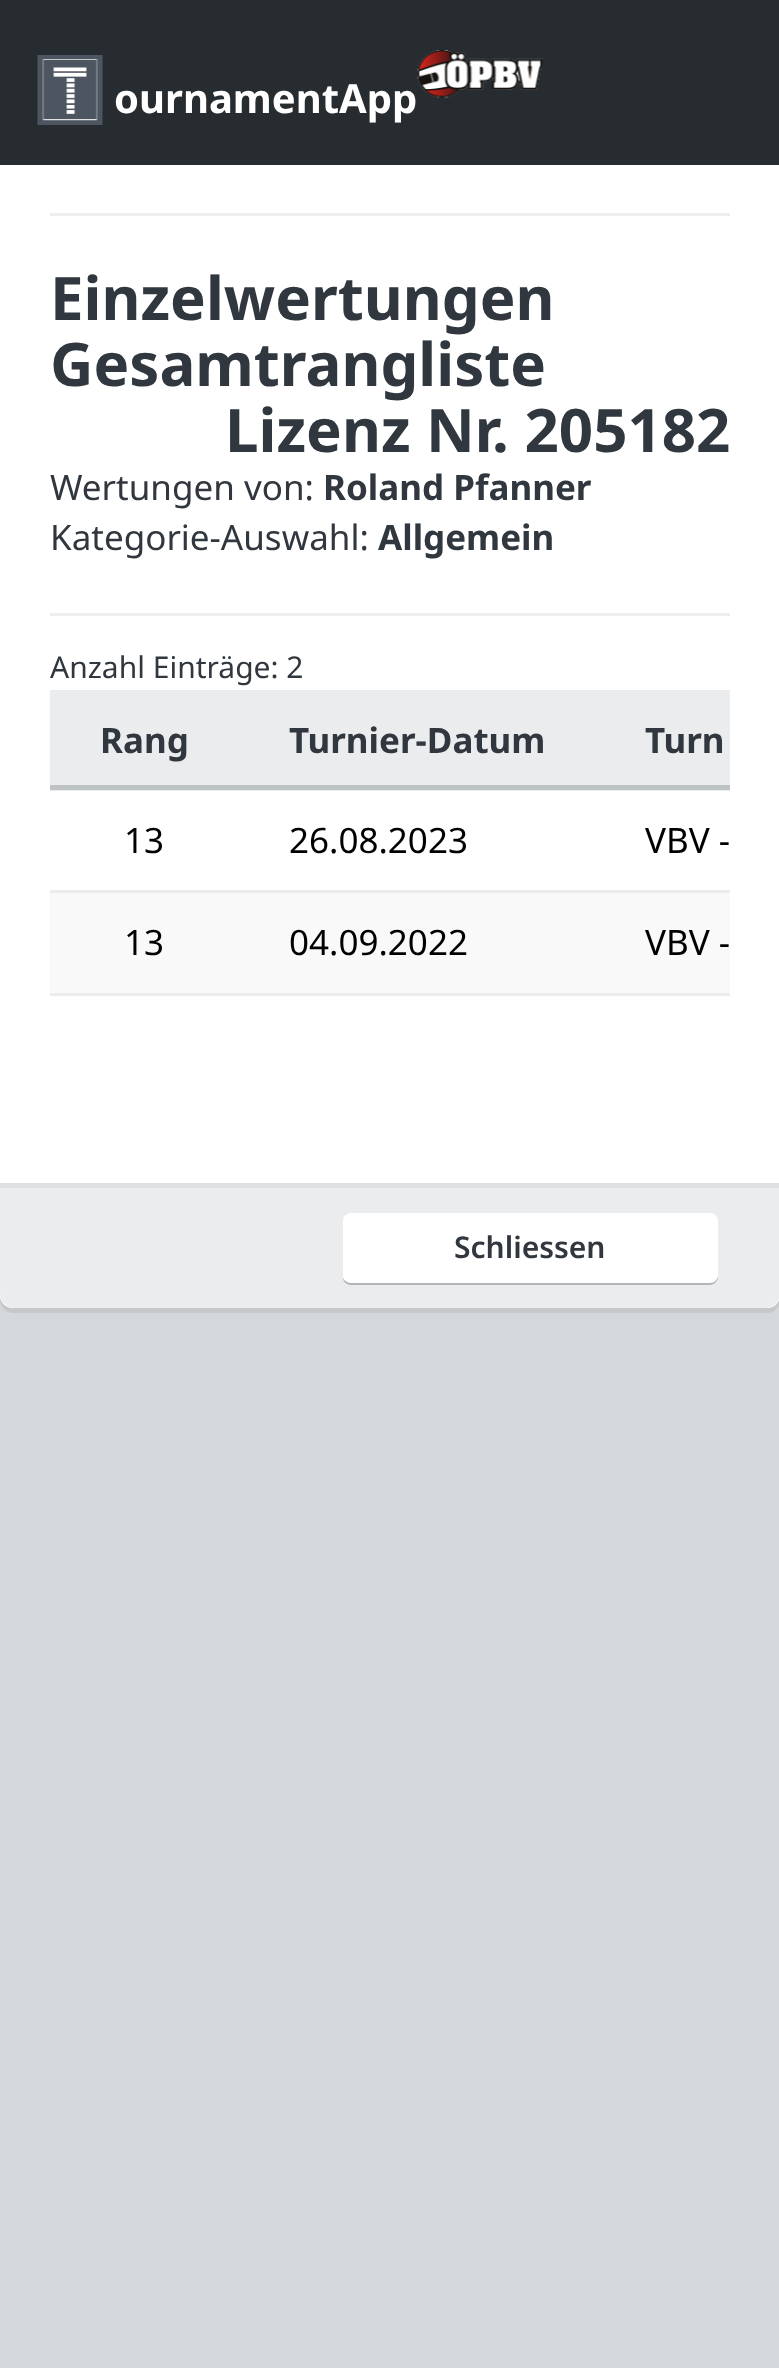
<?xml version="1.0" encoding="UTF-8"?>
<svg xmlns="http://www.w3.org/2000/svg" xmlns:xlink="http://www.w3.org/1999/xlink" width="779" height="2368">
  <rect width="100%" height="100%" fill="#d5d8da" />
  <path d="M 0 1295 v 5 c 0 7 6 13 13 13 h 754 c 7 0 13 -6 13 -13 v -5 c 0 7 -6 13 -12 13 h -756 c -6 0 -12 -6 -12 -13 z" fill="#c6c9cb" />
  <rect width="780" height="1308" rx="13" fill="#ffffff" />
  <rect width="779" height="165" fill="#272c31" />
  <image x="37" y="55" width="66" height="70" xlink:href="image1.png" />
  <image x="417" y="50" width="126" height="48" xlink:href="image2.png" />
  <rect x="50" y="213" width="680" height="3" fill="#eeeeee" />
  <rect x="50" y="613" width="680" height="3" fill="#eeeeee" />
  <rect x="50" y="690" width="680" height="95" fill="#ebeced" />
  <rect x="50" y="785" width="680" height="5" fill="#bec3c6" />
  <rect x="50" y="790" width="680" height="1" fill="#ebeced" />
  <rect x="50" y="893" width="680" height="100" fill="#f9f9f9" />
  <rect x="50" y="890" width="680" height="3" fill="#ebeced" />
  <rect x="50" y="993" width="680" height="3" fill="#ebeced" />
  <path d="M 0 1183 h 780 v 110 c 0 8.5 -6.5 15 -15 15 h -750 c -8.5 0 -15 -6.5 -15 -15 z" fill="#ebeced" />
  <rect y="1183" width="779" height="5" fill="#dfe0e1" />
  <path d="M 343 1278 c 0 4 4 7 8 7 h 359 c 4 0 8 -4 8 -8 v -54 v -3 v 55 c 0 4 -4 7 -8 7 h -360 c -3 0 -6 -1 -7 -4 z" fill="#b1b5b8" />
  <rect x="343" y="1213" width="375" height="70" rx="8" fill="#ffffff" />
  <text x="114" y="113" style="font-family: Noto Sans; font-size: 40px; font-weight: bold; fill: #ffffff">ournamentApp</text>
  <text x="50" y="320" style="font-family: Noto Sans; font-size: 60px; font-weight: bold; fill: #30373e">Einzelwertungen</text>
  <text x="50" y="386" style="font-family: Noto Sans; font-size: 60px; font-weight: bold; fill: #30373e">Gesamtrangliste</text>
  <text x="225" y="452" style="font-family: Noto Sans; font-size: 60px; font-weight: bold; fill: #30373e">Lizenz Nr. 205182</text>
  <text x="50" y="500" style="font-family: Noto Sans; font-size: 35px; fill: #30373e">Wertungen von:</text>
  <text x="323" y="500" style="font-family: Noto Sans; font-size: 35px; font-weight: bold; fill: #30373e">Roland Pfanner</text>
  <text x="50" y="550" style="font-family: Noto Sans; font-size: 35px; fill: #30373e">Kategorie-Auswahl:</text>
  <text x="378" y="550" style="font-family: Noto Sans; font-size: 35px; font-weight: bold; fill: #30373e">Allgemein</text>
  <text x="50" y="678" style="font-family: Noto Sans; font-size: 30px; fill: #30373e">Anzahl Einträge: 2</text>
  <text x="100" y="753" style="font-family: Noto Sans; font-size: 35px; font-weight: bold; fill: #30373e">Rang</text>
  <text x="289" y="753" style="font-family: Noto Sans; font-size: 35px; font-weight: bold; fill: #30373e">Turnier-Datum</text>
  <text x="645" y="753" style="font-family: Noto Sans; font-size: 35px; font-weight: bold; fill: #30373e">Turn</text>
  <text x="124" y="853" style="font-family: Noto Sans; font-size: 35px; fill: #000000">13</text>
  <text x="289" y="853" style="font-family: Noto Sans; font-size: 35px; fill: #000000">26.08.2023</text>
  <text x="645" y="853" style="font-family: Noto Sans; font-size: 35px; fill: #000000">VBV -</text>
  <text x="124" y="955" style="font-family: Noto Sans; font-size: 35px; fill: #000000">13</text>
  <text x="289" y="955" style="font-family: Noto Sans; font-size: 35px; fill: #000000">04.09.2022</text>
  <text x="645" y="955" style="font-family: Noto Sans; font-size: 35px; fill: #000000">VBV -</text>
  <text x="454" y="1258" style="font-family: Noto Sans; font-size: 30px; font-weight: 600; fill: #30373e">Schliessen</text>
</svg>
